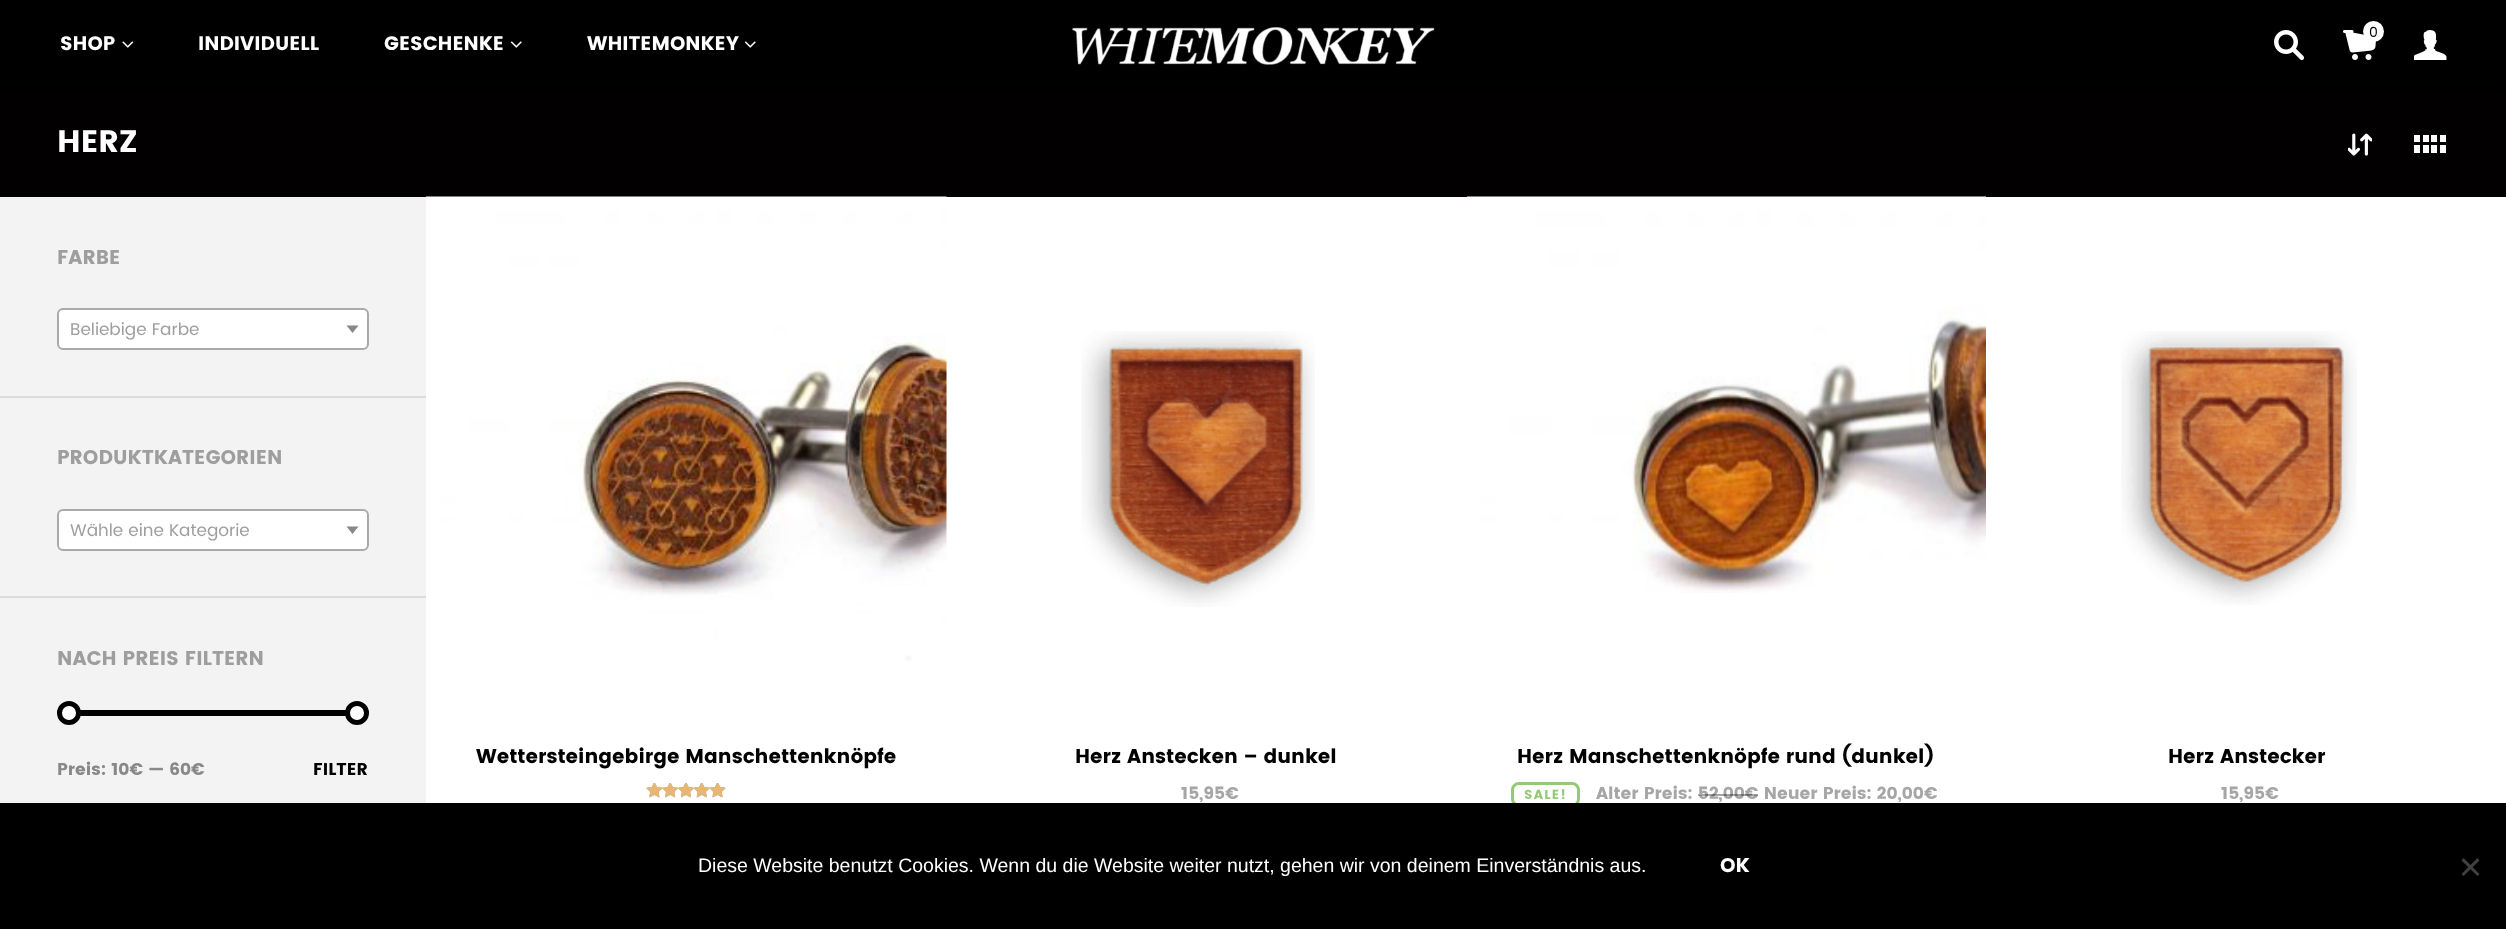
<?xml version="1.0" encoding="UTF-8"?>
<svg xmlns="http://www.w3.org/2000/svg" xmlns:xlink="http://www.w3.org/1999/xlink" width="2506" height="929">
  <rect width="100%" height="100%" fill="#ffffff" />
  <rect width="2506" height="92" fill="#000000" />
  <image x="1072" y="27" width="363" height="38" xlink:href="image1.png" />
  <image x="2274" y="30" width="30" height="31" xlink:href="image2.png" />
  <image x="2343" y="30" width="33" height="30" xlink:href="image3.png" />
  <circle cx="2373.5" cy="31.5" r="10.5" fill="#ffffff" />
  <image x="2414" y="30" width="33" height="30" xlink:href="image4.png" />
  <image x="122" y="41" width="12" height="7" xlink:href="image5.png" />
  <image x="510" y="41" width="12" height="7" xlink:href="image6.png" />
  <image x="744" y="41" width="12" height="7" xlink:href="image6.png" />
  <rect y="92" width="2506" height="105" fill="#020000" />
  <image x="2348" y="133" width="24" height="23" xlink:href="image7.png" />
  <image x="2414" y="135" width="32" height="18" xlink:href="image8.png" />
  <rect y="197" width="426" height="606" fill="#f3f3f3" />
  <rect y="396" width="426" height="2" fill="#dbdbdb" />
  <rect x="58" y="309" width="310" height="40" rx="5" fill="#ffffff" stroke="#aaaaaa" stroke-width="2" />
  <path d="M 346.5 325.5 h 12 l -6 7.5 z" fill="#888888" />
  <rect y="596" width="426" height="2" fill="#dbdbdb" />
  <rect x="58" y="510" width="310" height="40" rx="5" fill="#ffffff" stroke="#aaaaaa" stroke-width="2" />
  <path d="M 346.5 526.5 h 12 l -6 7.5 z" fill="#888888" />
  <rect x="80" y="710" width="266" height="6" fill="#000000" />
  <circle cx="69" cy="713" r="9.5" fill="#ffffff" stroke="#000000" stroke-width="5" />
  <circle cx="357" cy="713" r="9.5" fill="#ffffff" stroke="#000000" stroke-width="5" />
  <image x="426" y="196" width="521" height="465" xlink:href="image9.png" />
  <image x="646" y="783" width="80" height="15" xlink:href="image10.png" />
  <image x="646" y="783" width="80" height="15" xlink:href="image11.png" />
  <image x="1081" y="331" width="234" height="276" xlink:href="image12.png" />
  <image x="1467" y="196" width="519" height="397" xlink:href="image13.png" />
  <rect x="1512.5" y="783.5" width="66" height="22" rx="6.5" fill="none" stroke="#93ca78" stroke-width="3" />
  <image x="2121" y="331" width="236" height="274" xlink:href="image14.png" />
  <rect y="803" width="2506" height="126" fill="#000000" />
  <path d="M 2477.5 858 l 2 2.5 l -16 15.5 l -2 -2 z" fill="#404040" />
  <path d="M 2461.5 860.5 l 2 -2.5 l 16 16 l -2 2 z" fill="#404040" />
  <text x="2369" y="37" style="font-family: Poppins; font-size: 14px; fill: #000000">0</text>
  <text x="60" y="50" style="font-family: Poppins; font-size: 19.5px; font-weight: bold; fill: #ffffff">SHOP</text>
  <text x="198" y="50" style="font-family: Poppins; font-size: 19.5px; font-weight: bold; fill: #ffffff">INDIVIDUELL</text>
  <text x="384" y="50" style="font-family: Poppins; font-size: 19.5px; font-weight: bold; fill: #ffffff">GESCHENKE</text>
  <text x="587" y="50" style="font-family: Poppins; font-size: 19.5px; font-weight: bold; fill: #ffffff">WHITEMONKEY</text>
  <text x="57" y="152" style="font-family: Poppins; font-size: 31px; font-weight: bold; fill: #ffffff">HERZ</text>
  <text x="57" y="264" style="font-family: Poppins; font-size: 19.8px; font-weight: bold; fill: #9e9e9e">FARBE</text>
  <text x="70" y="335" style="font-family: Poppins; font-size: 17px; fill: #9e9e9e">Beliebige Farbe</text>
  <text x="57" y="464" style="font-family: Poppins; font-size: 19.8px; font-weight: bold; fill: #9e9e9e">PRODUKTKATEGORIEN</text>
  <text x="70" y="536" style="font-family: Poppins; font-size: 17px; fill: #9e9e9e">Wähle eine Kategorie</text>
  <text x="57" y="665" style="font-family: Poppins; font-size: 19.8px; font-weight: bold; fill: #9e9e9e">NACH PREIS FILTERN</text>
  <text x="57" y="775" style="font-family: Poppins; font-size: 17px; font-weight: bold; fill: #888888">Preis: 10€ — 60€</text>
  <text x="313" y="775" style="font-family: Poppins; font-size: 17px; font-weight: bold; fill: #000000">FILTER</text>
  <text x="476" y="763" style="font-family: Poppins; font-size: 19.8px; font-weight: bold; fill: #000000">Wettersteingebirge Manschettenknöpfe</text>
  <text x="1075" y="763" style="font-family: Poppins; font-size: 19.8px; font-weight: bold; fill: #000000">Herz Anstecken – dunkel</text>
  <text x="1181" y="799" style="font-family: Poppins; font-size: 17px; font-weight: bold; fill: #a6a6a6">15,95€</text>
  <text x="1517" y="763" style="font-family: Poppins; font-size: 19.8px; font-weight: bold; fill: #000000">Herz Manschettenknöpfe rund (dunkel)</text>
  <text x="1524" y="799" style="font-family: Poppins; font-size: 13px; font-weight: bold; letter-spacing: 1.25px; fill: #93ca78">SALE!</text>
  <text x="1596" y="799" style="font-family: Poppins; font-size: 17px; font-weight: bold; fill: #a6a6a6">Alter Preis: 52,00€ Neuer Preis: 20,00€</text>
  <rect x="1698" y="794" width="47" height="2" fill="#000000" fill-opacity="0.35" />
  <rect x="1745" y="794" width="13" height="2" fill="#000000" fill-opacity="0.35" />
  <text x="2168" y="763" style="font-family: Poppins; font-size: 19.8px; font-weight: bold; fill: #000000">Herz Anstecker</text>
  <text x="2221" y="799" style="font-family: Poppins; font-size: 17px; font-weight: bold; fill: #a6a6a6">15,95€</text>
  <text x="698" y="872" style="font-family: Liberation Sans; font-size: 19.5px; fill: #ffffff">Diese Website benutzt Cookies. Wenn du die Website weiter nutzt, gehen wir von deinem Einverständnis aus.</text>
  <text x="1720" y="872" style="font-family: Poppins; font-size: 19.8px; font-weight: bold; fill: #ffffff">OK</text>
</svg>
